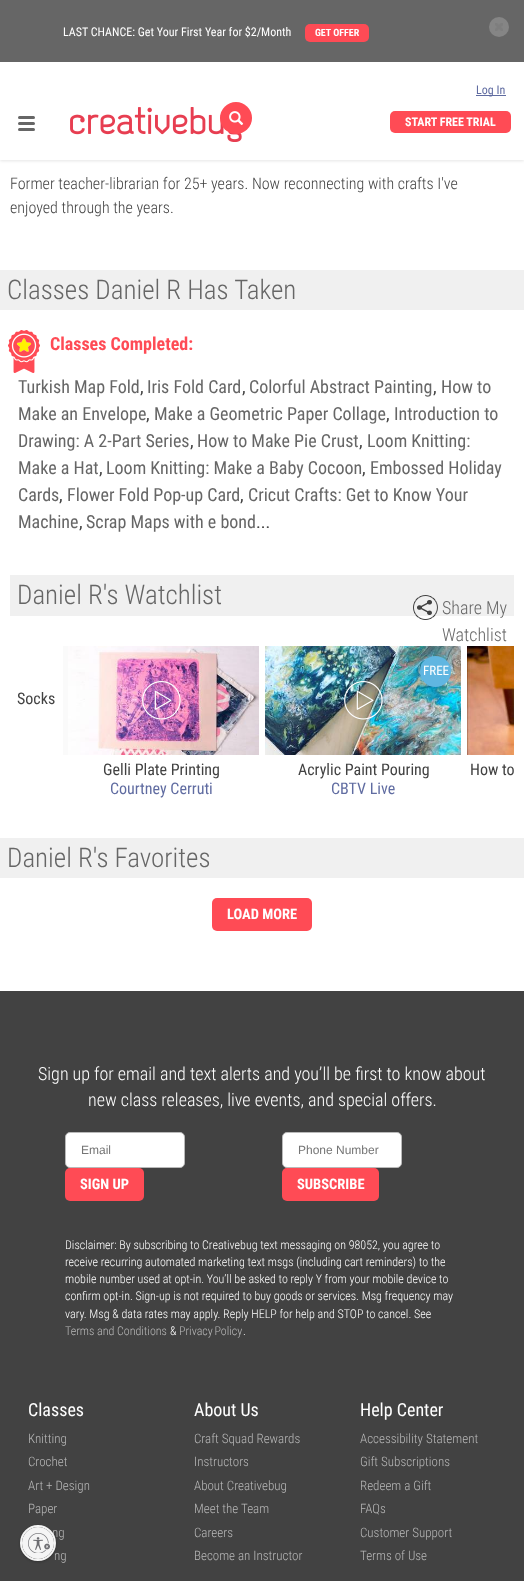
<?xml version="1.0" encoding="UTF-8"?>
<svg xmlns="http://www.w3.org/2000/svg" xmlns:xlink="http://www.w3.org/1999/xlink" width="524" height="1581">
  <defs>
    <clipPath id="clip1"><rect x="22" y="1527" width="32" height="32" rx="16" /></clipPath>
  </defs>
  <rect width="100%" height="100%" fill="#ffffff" />
  <rect y="61" width="524" height="100" fill="#000000" fill-opacity="0.1" filter="blur(1.5px)" />
  <rect width="524" height="62" fill="#666666" />
  <rect x="305" y="24" width="64" height="18" rx="5" fill="#ff4b55" />
  <circle cx="499" cy="27" r="10" fill="#858585" />
  <image x="495" y="23" width="8" height="8" xlink:href="image1.png" />
  <rect y="62" width="524" height="98" fill="#ffffff" />
  <rect x="18" y="116" width="17" height="3" rx="1.5" fill="#666666" />
  <rect x="18" y="122" width="17" height="3" rx="1.5" fill="#666666" />
  <rect x="18" y="128" width="17" height="3" rx="1.5" fill="#666666" />
  <image x="70" y="107" width="172" height="35" xlink:href="image2.png" />
  <rect x="476" y="95" width="30" height="1" fill="#606ca1" />
  <circle cx="236" cy="118" r="16" fill="#ff4b55" />
  <image x="229" y="111" width="15" height="14" xlink:href="image3.png" />
  <rect x="390" y="111" width="121" height="22" rx="5" fill="#ff4b55" />
  <rect y="270" width="524" height="40" fill="#f0f0f0" />
  <image x="8" y="330" width="32" height="43" xlink:href="image4.png" />
  <rect x="10" y="575" width="504" height="41" fill="#f0f0f0" />
  <image x="413" y="595" width="25" height="25" xlink:href="image5.png" />
  <image x="265" y="646" width="196" height="109" xlink:href="image6.png" />
  <circle cx="435.5" cy="671.5" r="15.5" fill="#60b6e1" />
  <image x="344" y="681" width="39" height="39" xlink:href="image7.png" />
  <rect x="63" y="646" width="5" height="109" fill="#fafafa" />
  <image x="68" y="646" width="191" height="109" xlink:href="image8.png" />
  <image x="142" y="681" width="39" height="39" xlink:href="image9.png" />
  <image x="467" y="646" width="47" height="109" xlink:href="image10.png" />
  <rect y="838" width="524" height="40" fill="#f0f0f0" />
  <rect x="212" y="898" width="100" height="33" rx="5" fill="#ff4b55" />
  <rect y="991" width="524" height="590" fill="#424242" />
  <rect x="65.5" y="1132.5" width="119" height="35" rx="4.5" fill="#ffffff" stroke="#b9b9b9" />
  <rect x="65" y="1168" width="79" height="33" rx="5" fill="#ff4b55" />
  <rect x="282.5" y="1132.5" width="119" height="35" rx="4.5" fill="#ffffff" stroke="#b9b9b9" />
  <rect x="282" y="1168" width="97" height="33" rx="5" fill="#ff4b55" />
  <rect x="20" y="1526" width="36" height="36" rx="18" fill="#000000" fill-opacity="0.24" filter="blur(1px)" />
  <text x="63" y="36" style="font-family: Roboto Condensed; font-size: 12px; fill: #ffffff">LAST CHANCE: Get Your First Year for $2/Month</text>
  <text x="315" y="36" style="font-family: Roboto Condensed; font-size: 10px; font-weight: bold; fill: #ffffff">GET OFFER</text>
  <text x="476" y="94" style="font-family: Roboto Condensed; font-size: 12px; fill: #606ca1">Log In</text>
  <text x="405" y="126" style="font-family: Roboto Condensed; font-size: 12px; font-weight: bold; fill: #ffffff">START FREE TRIAL</text>
  <text x="10" y="189" style="font-family: Roboto Condensed; font-size: 16px; font-weight: 300; fill: #424242">Former teacher-librarian for 25+ years. Now reconnecting with crafts I've</text>
  <text x="10" y="213" style="font-family: Roboto Condensed; font-size: 16px; font-weight: 300; fill: #424242">enjoyed through the years.</text>
  <text x="7" y="299" style="font-family: Roboto Condensed; font-size: 27px; font-weight: 300; fill: #666666">Classes Daniel R Has Taken</text>
  <text x="50" y="350" style="font-family: Roboto Condensed; font-size: 18px; font-weight: bold; fill: #ff4b55">Classes Completed:</text>
  <text x="18" y="393" style="font-family: Roboto Condensed; font-size: 18px; fill: #666666">Turkish Map Fold</text>
  <text x="140" y="393" style="font-family: Roboto Condensed; font-size: 18px; fill: #424242">,</text>
  <text x="147" y="393" style="font-family: Roboto Condensed; font-size: 18px; fill: #666666">Iris Fold Card</text>
  <text x="242" y="393" style="font-family: Roboto Condensed; font-size: 18px; fill: #424242">,</text>
  <text x="249" y="393" style="font-family: Roboto Condensed; font-size: 18px; fill: #666666">Colorful Abstract Painting</text>
  <text x="433" y="393" style="font-family: Roboto Condensed; font-size: 18px; fill: #424242">,</text>
  <text x="441" y="393" style="font-family: Roboto Condensed; font-size: 18px; fill: #666666">How to</text>
  <text x="18" y="420" style="font-family: Roboto Condensed; font-size: 18px; fill: #666666">Make an Envelope</text>
  <text x="146" y="420" style="font-family: Roboto Condensed; font-size: 18px; fill: #424242">,</text>
  <text x="154" y="420" style="font-family: Roboto Condensed; font-size: 18px; fill: #666666">Make a Geometric Paper Collage</text>
  <text x="386" y="420" style="font-family: Roboto Condensed; font-size: 18px; fill: #424242">,</text>
  <text x="394" y="420" style="font-family: Roboto Condensed; font-size: 18px; fill: #666666">Introduction to</text>
  <text x="18" y="447" style="font-family: Roboto Condensed; font-size: 18px; fill: #666666">Drawing: A 2-Part Series</text>
  <text x="190" y="447" style="font-family: Roboto Condensed; font-size: 18px; fill: #424242">,</text>
  <text x="197" y="447" style="font-family: Roboto Condensed; font-size: 18px; fill: #666666">How to Make Pie Crust</text>
  <text x="359" y="447" style="font-family: Roboto Condensed; font-size: 18px; fill: #424242">,</text>
  <text x="367" y="447" style="font-family: Roboto Condensed; font-size: 18px; fill: #666666">Loom Knitting:</text>
  <text x="18" y="474" style="font-family: Roboto Condensed; font-size: 18px; fill: #666666">Make a Hat</text>
  <text x="99" y="474" style="font-family: Roboto Condensed; font-size: 18px; fill: #424242">,</text>
  <text x="106" y="474" style="font-family: Roboto Condensed; font-size: 18px; fill: #666666">Loom Knitting: Make a Baby Cocoon</text>
  <text x="362" y="474" style="font-family: Roboto Condensed; font-size: 18px; fill: #424242">,</text>
  <text x="370" y="474" style="font-family: Roboto Condensed; font-size: 18px; fill: #666666">Embossed Holiday</text>
  <text x="18" y="501" style="font-family: Roboto Condensed; font-size: 18px; fill: #666666">Cards</text>
  <text x="59" y="501" style="font-family: Roboto Condensed; font-size: 18px; fill: #424242">,</text>
  <text x="67" y="501" style="font-family: Roboto Condensed; font-size: 18px; fill: #666666">Flower Fold Pop-up Card</text>
  <text x="240" y="501" style="font-family: Roboto Condensed; font-size: 18px; fill: #424242">,</text>
  <text x="248" y="501" style="font-family: Roboto Condensed; font-size: 18px; fill: #666666">Cricut Crafts: Get to Know Your</text>
  <text x="18" y="528" style="font-family: Roboto Condensed; font-size: 18px; fill: #666666">Machine</text>
  <text x="79" y="528" style="font-family: Roboto Condensed; font-size: 18px; fill: #424242">,</text>
  <text x="86" y="528" style="font-family: Roboto Condensed; font-size: 18px; fill: #666666">Scrap Maps with e bond</text>
  <text x="256" y="528" style="font-family: Roboto Condensed; font-size: 18px; fill: #424242">...</text>
  <text x="17" y="604" style="font-family: Roboto Condensed; font-size: 27px; font-weight: 300; fill: #666666">Daniel R's Watchlist</text>
  <text x="442" y="614" style="font-family: Roboto Condensed; font-size: 18px; font-weight: 300; fill: #666666">Share My</text>
  <text x="442" y="641" style="font-family: Roboto Condensed; font-size: 18px; font-weight: 300; fill: #666666">Watchlist</text>
  <text x="17" y="704" style="font-family: Roboto Condensed; font-size: 16px; fill: #424242">Socks</text>
  <text x="423" y="675" style="font-family: Roboto Condensed; font-size: 13px; fill: #ffffff">FREE</text>
  <text x="298" y="775" style="font-family: Roboto Condensed; font-size: 16px; fill: #424242">Acrylic Paint Pouring</text>
  <text x="331" y="794" style="font-family: Roboto Condensed; font-size: 16px; fill: #606ca1">CBTV Live</text>
  <text x="103" y="775" style="font-family: Roboto Condensed; font-size: 16px; fill: #424242">Gelli Plate Printing</text>
  <text x="110" y="794" style="font-family: Roboto Condensed; font-size: 16px; fill: #606ca1">Courtney Cerruti</text>
  <text x="470" y="775" style="font-family: Roboto Condensed; font-size: 16px; fill: #424242">How to</text>
  <text x="7" y="867" style="font-family: Roboto Condensed; font-size: 27px; font-weight: 300; fill: #666666">Daniel R's Favorites</text>
  <text x="227" y="919" style="font-family: Roboto Condensed; font-size: 14.5px; font-weight: bold; fill: #ffffff">LOAD MORE</text>
  <text x="38" y="1080" style="font-family: Roboto Condensed; font-size: 18px; font-weight: 300; fill: #ffffff">Sign up for email and text alerts and you’ll be first to know about</text>
  <text x="88" y="1106" style="font-family: Roboto Condensed; font-size: 18px; font-weight: 300; fill: #ffffff">new class releases, live events, and special offers.</text>
  <text x="81" y="1154" style="font-family: Liberation Sans; font-size: 12px; fill: #757575">Email</text>
  <text x="80" y="1189" style="font-family: Roboto Condensed; font-size: 14.5px; font-weight: bold; fill: #ffffff">SIGN UP</text>
  <text x="298" y="1154" style="font-family: Liberation Sans; font-size: 12px; fill: #757575">Phone Number</text>
  <text x="297" y="1189" style="font-family: Roboto Condensed; font-size: 14.5px; font-weight: bold; fill: #ffffff">SUBSCRIBE</text>
  <text x="65" y="1249" style="font-family: Roboto Condensed; font-size: 12px; font-weight: 300; fill: #ffffff">Disclaimer: By subscribing to Creativebug text messaging on 98052, you agree to</text>
  <text x="65" y="1266" style="font-family: Roboto Condensed; font-size: 12px; font-weight: 300; fill: #ffffff">receive recurring automated marketing text msgs (including cart reminders) to the</text>
  <text x="65" y="1283" style="font-family: Roboto Condensed; font-size: 12px; font-weight: 300; fill: #ffffff">mobile number used at opt-in. You’ll be asked to reply Y from your mobile device to</text>
  <text x="65" y="1300" style="font-family: Roboto Condensed; font-size: 12px; font-weight: 300; fill: #ffffff">confirm opt-in. Sign-up is not required to buy goods or services. Msg frequency may</text>
  <text x="65" y="1318" style="font-family: Roboto Condensed; font-size: 12px; font-weight: 300; fill: #ffffff">vary. Msg &amp; data rates may apply. Reply HELP for help and STOP to cancel. See</text>
  <text x="65" y="1335" style="font-family: Roboto Condensed; font-size: 12px; font-weight: 300; fill: #b9b9b9">Terms and Conditions</text>
  <text x="170" y="1335" style="font-family: Roboto Condensed; font-size: 12px; font-weight: 300; fill: #ffffff">&amp;</text>
  <text x="179" y="1335" word-spacing="-1" style="font-family: Roboto Condensed; font-size: 12px; font-weight: 300; fill: #b9b9b9">Privacy Policy</text>
  <text x="243" y="1335" style="font-family: Roboto Condensed; font-size: 12px; font-weight: 300; fill: #ffffff">.</text>
  <text x="28" y="1416" style="font-family: Roboto Condensed; font-size: 18px; fill: #ffffff">Classes</text>
  <text x="28" y="1443" style="font-family: Roboto Condensed; font-size: 13px; font-weight: 300; fill: #b9b9b9">Knitting</text>
  <text x="28" y="1466" style="font-family: Roboto Condensed; font-size: 13px; font-weight: 300; fill: #b9b9b9">Crochet</text>
  <text x="28" y="1490" style="font-family: Roboto Condensed; font-size: 13px; font-weight: 300; fill: #b9b9b9">Art + Design</text>
  <text x="28" y="1513" style="font-family: Roboto Condensed; font-size: 13px; font-weight: 300; fill: #b9b9b9">Paper</text>
  <text x="52" y="1537" style="font-family: Roboto Condensed; font-size: 13px; font-weight: 300; fill: #b9b9b9">ng</text>
  <text x="54" y="1560" style="font-family: Roboto Condensed; font-size: 13px; font-weight: 300; fill: #b9b9b9">ng</text>
  <text x="194" y="1416" style="font-family: Roboto Condensed; font-size: 18px; fill: #ffffff">About Us</text>
  <text x="194" y="1443" style="font-family: Roboto Condensed; font-size: 13px; font-weight: 300; fill: #b9b9b9">Craft Squad Rewards</text>
  <text x="194" y="1466" style="font-family: Roboto Condensed; font-size: 13px; font-weight: 300; fill: #b9b9b9">Instructors</text>
  <text x="194" y="1490" style="font-family: Roboto Condensed; font-size: 13px; font-weight: 300; fill: #b9b9b9">About Creativebug</text>
  <text x="194" y="1513" style="font-family: Roboto Condensed; font-size: 13px; font-weight: 300; fill: #b9b9b9">Meet the Team</text>
  <text x="194" y="1537" style="font-family: Roboto Condensed; font-size: 13px; font-weight: 300; fill: #b9b9b9">Careers</text>
  <text x="194" y="1560" style="font-family: Roboto Condensed; font-size: 13px; font-weight: 300; fill: #b9b9b9">Become an Instructor</text>
  <text x="360" y="1416" style="font-family: Roboto Condensed; font-size: 18px; fill: #ffffff">Help Center</text>
  <text x="360" y="1443" style="font-family: Roboto Condensed; font-size: 13px; font-weight: 300; fill: #b9b9b9">Accessibility Statement</text>
  <text x="360" y="1466" style="font-family: Roboto Condensed; font-size: 13px; font-weight: 300; fill: #b9b9b9">Gift Subscriptions</text>
  <text x="360" y="1490" style="font-family: Roboto Condensed; font-size: 13px; font-weight: 300; fill: #b9b9b9">Redeem a Gift</text>
  <text x="360" y="1513" style="font-family: Roboto Condensed; font-size: 13px; font-weight: 300; fill: #b9b9b9">FAQs</text>
  <text x="360" y="1537" style="font-family: Roboto Condensed; font-size: 13px; font-weight: 300; fill: #b9b9b9">Customer Support</text>
  <text x="360" y="1560" style="font-family: Roboto Condensed; font-size: 13px; font-weight: 300; fill: #b9b9b9">Terms of Use</text>
  <circle cx="38" cy="1543" r="17" fill="none" stroke="#f5f5f5" stroke-width="2" />
  <g clip-path="url(#clip1)">
    <rect x="22" y="1528" width="32" height="32" rx="16" fill="#000000" fill-opacity="0.24" filter="blur(1px)" />
  </g>
  <circle cx="38" cy="1543" r="16" fill="#f5f5f5" />
  <image x="28" y="1533" width="22" height="20" xlink:href="image11.png" />
</svg>
